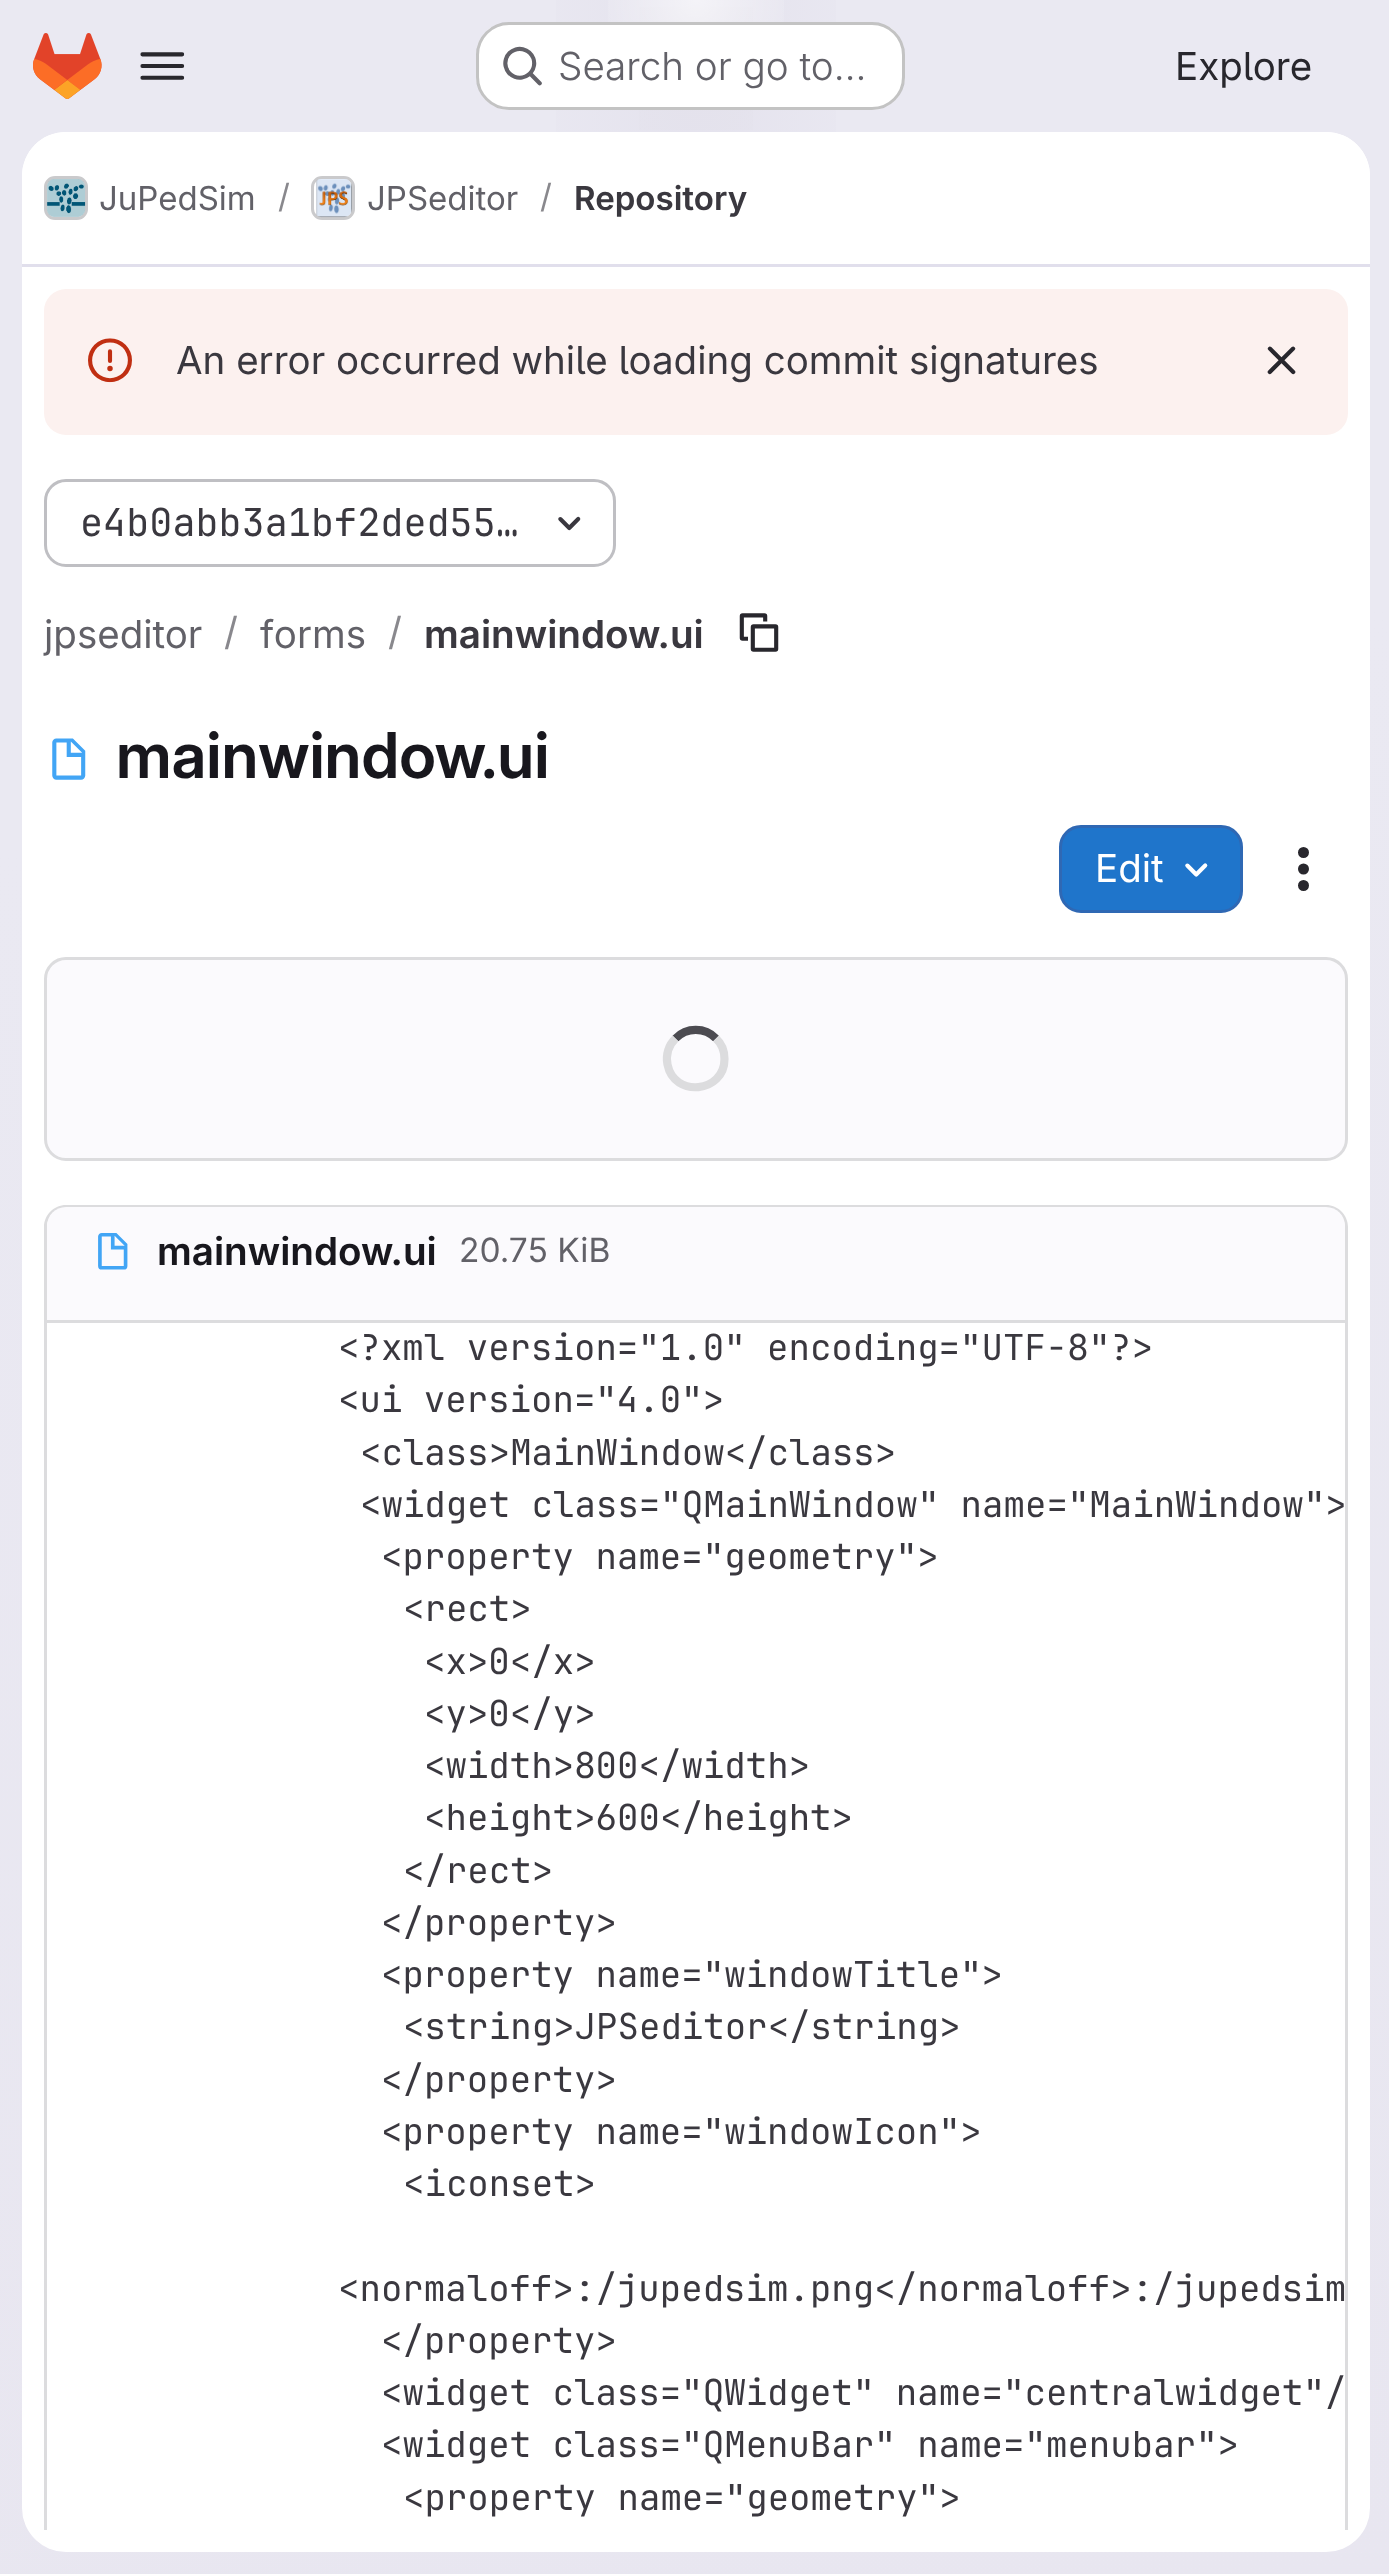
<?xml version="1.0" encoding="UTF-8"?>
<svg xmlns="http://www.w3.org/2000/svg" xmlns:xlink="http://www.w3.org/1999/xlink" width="1389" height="2574">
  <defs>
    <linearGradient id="g1" gradientUnits="userSpaceOnUse" x1="937" y1="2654" x2="455" y2="-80"><stop offset="0" stop-color="#e8e6f0" /><stop offset="0.7" stop-color="#eae9f2" /></linearGradient>
    <radialGradient id="g2" gradientUnits="userSpaceOnUse" cx="0" cy="0" r="1" gradientTransform="matrix(696 0 0 2574 696 0)"><stop offset="0" stop-color="#e4e2ed" /><stop offset="0.28" stop-color="#e4e2ed" stop-opacity="0" /></radialGradient>
    <radialGradient id="g3" gradientUnits="userSpaceOnUse" cx="0" cy="0" r="1" gradientTransform="matrix(696 0 0 2574 696 0)"><stop offset="0" stop-color="#e4e2ec" /><stop offset="0.2" stop-color="#e4e2ec" stop-opacity="0" /></radialGradient>
    <radialGradient id="g4" gradientUnits="userSpaceOnUse" cx="696" cy="0" r="2666"><stop offset="0" stop-color="#ffffff" stop-opacity="0.6" /><stop offset="0.04" stop-color="#ffffff" stop-opacity="0" /></radialGradient>
    <clipPath id="clip1"><rect x="22" y="267" width="1348" height="2263" /></clipPath>
  </defs>
  <rect width="100%" height="100%" fill="#ffffff" />
  <rect width="1389" height="2574" fill="url(#g1)" />
  <rect x="556" width="280" height="132" fill="url(#g2)" />
  <rect x="639" y="7" width="114" height="123" fill="url(#g3)" />
  <rect x="608" width="176" height="90" fill="url(#g4)" />
  <image x="33" y="33" width="69" height="66" xlink:href="image1.png" />
  <image x="140" y="52" width="45" height="28" xlink:href="image2.png" />
  <rect x="476" y="22" width="429" height="88" rx="33" fill="#ffffff" />
  <rect x="477.5" y="23.5" width="426" height="85" rx="31.5" fill="none" stroke="#050506" stroke-opacity="0.24" stroke-width="3" />
  <image x="503" y="46" width="39" height="40" xlink:href="image3.png" />
  <rect x="22" y="132" width="1348" height="2420" rx="44" fill="#ffffff" />
  <path d="M 66 132 h 1260 c 24.5 0 44 19.5 44 44 v 91 h -1348 v -91 c 0 -24.5 19.5 -44 44 -44 z" fill="#ffffff" />
  <rect x="22" y="264" width="1348" height="3" fill="#e1dfec" />
  <rect x="45.5" y="177.5" width="41" height="41" rx="9.5" fill="none" stroke="#dcdcde" stroke-width="3" />
  <image x="46" y="179" width="40" height="38" xlink:href="image4.png" />
  <rect x="45.5" y="177.5" width="41" height="41" rx="9.5" fill="none" stroke="#050506" stroke-opacity="0.08" stroke-width="3" />
  <rect x="312.5" y="177.5" width="41" height="41" rx="9.5" fill="none" stroke="#dcdcde" stroke-width="3" />
  <image x="316" y="179" width="36" height="39" xlink:href="image5.png" />
  <rect x="312.5" y="177.5" width="41" height="41" rx="9.5" fill="none" stroke="#050506" stroke-opacity="0.08" stroke-width="3" />
  <rect x="44" y="289" width="1304" height="146" rx="22" fill="#fcf1ef" />
  <image x="88" y="338" width="44" height="45" xlink:href="image6.png" />
  <image x="1267" y="346" width="29" height="29" xlink:href="image7.png" />
  <rect x="45.5" y="480.5" width="569" height="85" rx="20.5" fill="none" stroke="#bfbfc3" stroke-width="3" />
  <image x="558" y="516" width="23" height="15" xlink:href="image8.png" />
  <image x="739" y="613" width="40" height="39" xlink:href="image9.png" />
  <image x="52" y="738" width="34" height="42" xlink:href="image10.png" />
  <rect x="1060.5" y="826.5" width="181" height="85" rx="20.5" fill="#1f75cb" stroke="#2f68b4" stroke-width="3" />
  <image x="1185" y="863" width="23" height="14" xlink:href="image11.png" />
  <image x="1298" y="847" width="11" height="44" xlink:href="image12.png" />
  <rect x="45.5" y="958.5" width="1301" height="201" rx="20.5" fill="#fbfafd" stroke="#dcdcde" stroke-width="3" />
  <path d="M 675.5 1038.5 c 11 -11.5 29.5 -11.5 40.5 0" fill="none" stroke="#4c4b51" stroke-width="8.2" />
  <path d="M 716 1038.5 c 5.5 5 8.5 12.5 8.5 20.5 c 0 34 -50.5 39 -57 5.5 c -2 -9.5 1 -19.5 8 -26" fill="none" stroke="#dcdcde" stroke-width="8.2" />
  <g clip-path="url(#clip1)">
    <path d="M 66 1205 c -12 0 -22 10 -22 22 v 1319 l 3 2 v -1321 c 0 -10 9 -19 19 -19 h 1260 c 10 0 19 9 19 19 v 1321 l 3 -2 v -1319 c 0 -12 -10 -22 -22 -22 z" fill="#dcdcde" />
  </g>
  <path d="M 66 1207 h 1260 c 10.5 0 19 8.5 19 19 v 97 h -1298 v -97 c 0 -10.5 8.5 -19 19 -19 z" fill="#fbfafd" />
  <rect x="47" y="1320" width="1298" height="3" fill="#dcdcde" />
  <image x="98" y="1233" width="30" height="37" xlink:href="image13.png" />
  <text x="558" y="80" style="font-family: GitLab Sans; font-size: 38.5px; font-weight: 300; fill: #626168">Search or go to…</text>
  <text x="1175" y="80" style="font-family: GitLab Sans; font-size: 38.5px; fill: #28272d">Explore</text>
  <text x="99" y="210" style="font-family: GitLab Sans; font-size: 33px; fill: #626168">JuPedSim</text>
  <text x="278" y="208" style="font-family: GitLab Sans; font-size: 33px; fill: #89888d">/</text>
  <text x="367" y="210" style="font-family: GitLab Sans; font-size: 33px; fill: #626168">JPSeditor</text>
  <text x="540" y="208" style="font-family: GitLab Sans; font-size: 33px; fill: #89888d">/</text>
  <text x="574" y="210" style="font-family: 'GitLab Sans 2'; font-size: 33px; font-weight: 600; fill: #3a383f">Repository</text>
  <text x="176" y="374" style="font-family: GitLab Sans; font-size: 38.5px; fill: #3a383f">An error occurred while loading commit signatures</text>
  <text x="80" y="536" style="font-family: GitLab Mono; font-size: 38.5px; fill: #3a383f">e4b0abb3a1bf2ded55…</text>
  <text x="44" y="648" style="font-family: GitLab Sans; font-size: 38.5px; fill: #626168">jpseditor</text>
  <text x="224" y="645" style="font-family: GitLab Sans; font-size: 38.5px; fill: #89888d">/</text>
  <text x="260" y="648" style="font-family: GitLab Sans; font-size: 38.5px; fill: #626168">forms</text>
  <text x="388" y="645" style="font-family: GitLab Sans; font-size: 38.5px; fill: #89888d">/</text>
  <text x="424" y="648" style="font-family: 'GitLab Sans 2'; font-size: 38.5px; font-weight: 600; fill: #3a383f">mainwindow.ui</text>
  <text x="116" y="778" style="font-family: GitLab Sans; font-size: 63.25px; font-weight: 600; fill: #18171d">mainwindow.ui</text>
  <text x="1095" y="882" style="font-family: GitLab Sans; font-size: 38.5px; fill: #ffffff">Edit</text>
  <text x="157" y="1265" style="font-family: 'GitLab Sans 2'; font-size: 38.5px; font-weight: 600; fill: #18171d">mainwindow.ui</text>
  <text x="459" y="1262" style="font-family: GitLab Sans; font-size: 33.5px; fill: #626168">20.75 KiB</text>
  <text x="338" y="1360" style="font-family: GitLab Mono; font-size: 35.75px; fill: #3a383f">&lt;?xml version="1.0" encoding="UTF-8"?&gt;</text>
  <text x="338" y="1412" style="font-family: GitLab Mono; font-size: 35.75px; fill: #3a383f">&lt;ui version="4.0"&gt;</text>
  <text x="360" y="1465" style="font-family: GitLab Mono; font-size: 35.75px; fill: #3a383f">&lt;class&gt;MainWindow&lt;/class&gt;</text>
  <text x="360" y="1517" style="font-family: GitLab Mono; font-size: 35.75px; fill: #3a383f">&lt;widget class="QMainWindow" name="MainWindow"&gt;</text>
  <text x="381" y="1569" style="font-family: GitLab Mono; font-size: 35.75px; fill: #3a383f">&lt;property name="geometry"&gt;</text>
  <text x="403" y="1621" style="font-family: GitLab Mono; font-size: 35.75px; fill: #3a383f">&lt;rect&gt;</text>
  <text x="424" y="1674" style="font-family: GitLab Mono; font-size: 35.75px; fill: #3a383f">&lt;x&gt;0&lt;/x&gt;</text>
  <text x="424" y="1726" style="font-family: GitLab Mono; font-size: 35.75px; fill: #3a383f">&lt;y&gt;0&lt;/y&gt;</text>
  <text x="424" y="1778" style="font-family: GitLab Mono; font-size: 35.75px; fill: #3a383f">&lt;width&gt;800&lt;/width&gt;</text>
  <text x="424" y="1830" style="font-family: GitLab Mono; font-size: 35.75px; fill: #3a383f">&lt;height&gt;600&lt;/height&gt;</text>
  <text x="403" y="1883" style="font-family: GitLab Mono; font-size: 35.75px; fill: #3a383f">&lt;/rect&gt;</text>
  <text x="381" y="1935" style="font-family: GitLab Mono; font-size: 35.75px; fill: #3a383f">&lt;/property&gt;</text>
  <text x="381" y="1987" style="font-family: GitLab Mono; font-size: 35.75px; fill: #3a383f">&lt;property name="windowTitle"&gt;</text>
  <text x="403" y="2039" style="font-family: GitLab Mono; font-size: 35.75px; fill: #3a383f">&lt;string&gt;JPSeditor&lt;/string&gt;</text>
  <text x="381" y="2092" style="font-family: GitLab Mono; font-size: 35.75px; fill: #3a383f">&lt;/property&gt;</text>
  <text x="381" y="2144" style="font-family: GitLab Mono; font-size: 35.75px; fill: #3a383f">&lt;property name="windowIcon"&gt;</text>
  <text x="403" y="2196" style="font-family: GitLab Mono; font-size: 35.75px; fill: #3a383f">&lt;iconset&gt;</text>
  <text x="338" y="2301" style="font-family: GitLab Mono; font-size: 35.75px; fill: #3a383f">&lt;normaloff&gt;:/jupedsim.png&lt;/normaloff&gt;:/jupedsim</text>
  <text x="381" y="2353" style="font-family: GitLab Mono; font-size: 35.75px; fill: #3a383f">&lt;/property&gt;</text>
  <text x="381" y="2405" style="font-family: GitLab Mono; font-size: 35.75px; fill: #3a383f">&lt;widget class="QWidget" name="centralwidget"/</text>
  <text x="381" y="2457" style="font-family: GitLab Mono; font-size: 35.75px; fill: #3a383f">&lt;widget class="QMenuBar" name="menubar"&gt;</text>
  <text x="403" y="2510" style="font-family: GitLab Mono; font-size: 35.75px; fill: #3a383f">&lt;property name="geometry"&gt;</text>
</svg>
